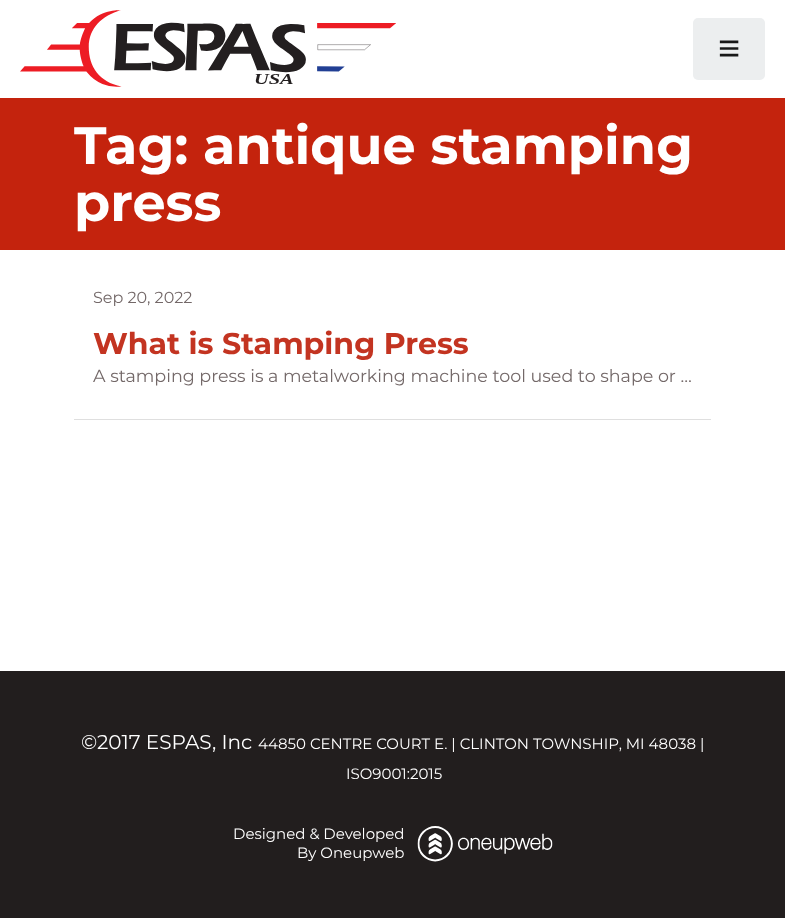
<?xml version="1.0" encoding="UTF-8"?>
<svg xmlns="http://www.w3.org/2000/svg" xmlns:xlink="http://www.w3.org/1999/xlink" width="785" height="918">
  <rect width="100%" height="100%" fill="#ffffff" />
  <image x="20" y="10" width="376" height="77" xlink:href="image1.png" />
  <rect x="693" y="18" width="72" height="62" rx="5" fill="#eceeef" />
  <rect y="98" width="785" height="152" fill="#c4230d" />
  <rect x="74" y="419" width="637" height="1" fill="#dfdfdf" />
  <rect y="671" width="785" height="247" fill="#221e1e" />
  <image x="417" y="826" width="136" height="36" xlink:href="image2.png" />
  <text x="718" y="61" style="font-family: Liberation Sans; font-size: 38px; fill: #181818">≡</text>
  <text x="74" y="164" style="font-family: Montserrat; font-size: 52.5px; font-weight: bold; fill: #ffffff">Tag: antique stamping</text>
  <text x="74" y="221" style="font-family: Montserrat; font-size: 52.5px; font-weight: bold; fill: #ffffff">press</text>
  <text x="93" y="303" style="font-family: Montserrat; font-size: 16px; fill: #736868">Sep 20, 2022</text>
  <text x="93" y="354" style="font-family: Montserrat; font-size: 30px; font-weight: bold; fill: #c33421">What is Stamping Press</text>
  <text x="93" y="382" style="font-family: Montserrat; font-size: 17.5px; fill: #736868">A stamping press is a metalworking machine tool used to shape or …</text>
  <text x="81" y="749" style="font-family: Montserrat; font-size: 20px; fill: #ffffff">©2017 ESPAS, Inc</text>
  <text x="258" y="749" style="font-family: Montserrat; font-size: 15px; fill: #ffffff">44850 CENTRE COURT E. | CLINTON TOWNSHIP, MI 48038 |</text>
  <text x="346" y="779" style="font-family: Montserrat; font-size: 15px; fill: #ffffff">ISO9001:2015</text>
  <text x="233" y="839" style="font-family: Montserrat; font-size: 15px; fill: #ffffff">Designed &amp; Developed</text>
  <text x="297" y="858" style="font-family: Montserrat; font-size: 15px; fill: #ffffff">By Oneupweb</text>
</svg>
